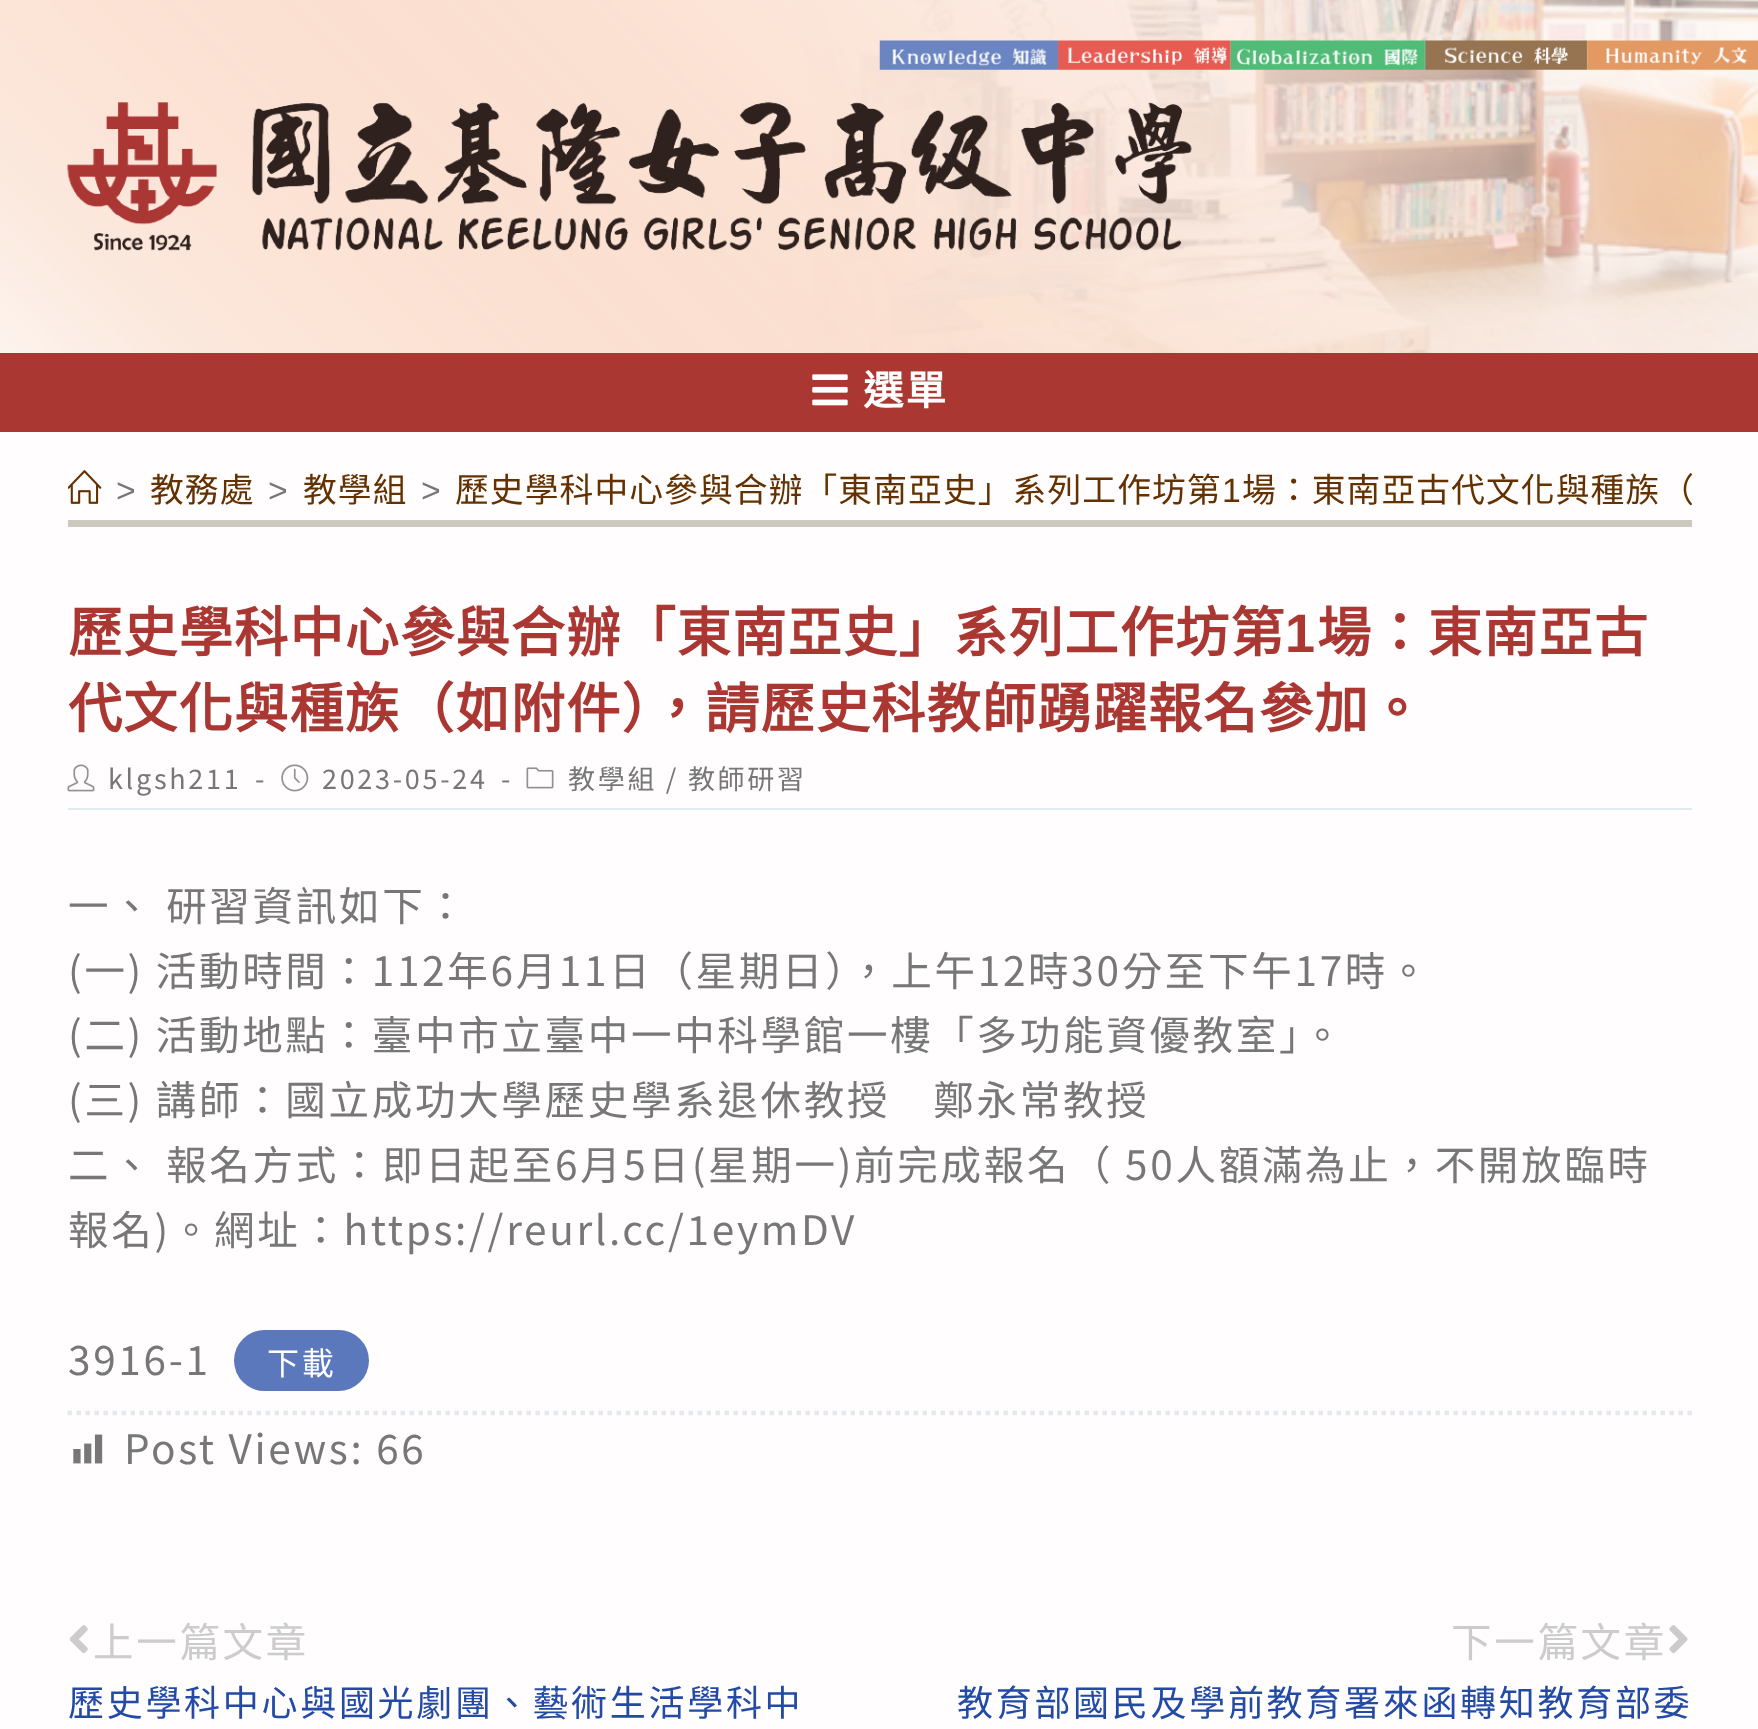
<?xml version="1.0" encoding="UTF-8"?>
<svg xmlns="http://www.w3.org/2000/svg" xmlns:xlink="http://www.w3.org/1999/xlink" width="1758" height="1729">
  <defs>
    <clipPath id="clip1"><rect x="68" y="455" width="1624" height="65" /></clipPath>
  </defs>
  <rect width="100%" height="100%" fill="#fffdfe" />
  <image x="0" y="0" width="1758" height="353" xlink:href="image1.png" />
  <image x="879" y="40" width="879" height="30" xlink:href="image2.png" />
  <image x="67" y="102" width="1125" height="149" xlink:href="image3.png" />
  <rect y="353" width="1758" height="79" fill="#aa3732" />
  <image x="812" y="374" width="36" height="32" xlink:href="image4.png" />
  <rect x="68" y="520" width="1624" height="7" fill="#cccabe" />
  <image x="68" y="470" width="34" height="34" xlink:href="image5.png" />
  <rect x="68" y="808" width="1624" height="2" fill="#e1ebed" />
  <image x="67" y="764" width="28" height="28" xlink:href="image6.png" />
  <image x="281" y="764" width="28" height="28" xlink:href="image7.png" />
  <image x="526" y="767" width="28" height="22" xlink:href="image8.png" />
  <path d="M 67.5 1413 h 1624.5" fill="none" stroke="#e1ebed" stroke-width="4.5" stroke-dasharray="4.5 4.5" />
  <rect x="234" y="1330" width="135" height="61" rx="30.5" fill="#5a78bb" />
  <image x="73" y="1434" width="30" height="30" xlink:href="image9.png" />
  <image x="69" y="1625" width="19" height="29" xlink:href="image10.png" />
  <image x="1669" y="1625" width="19" height="29" xlink:href="image11.png" />
  <text x="863" y="405" style="font-family: Noto Sans CJK TC; font-size: 40.5px; font-weight: bold; letter-spacing: 2px; fill: #ffffff">選單</text>
  <text x="116" y="502" style="font-family: Liberation Sans; font-size: 33.75px; letter-spacing: 1.1px; fill: #777777">&gt;</text>
  <text x="150" y="502" style="font-family: Noto Sans CJK TC; font-size: 33.75px; letter-spacing: 1.1px; fill: #643200">教務處</text>
  <text x="268" y="502" style="font-family: Liberation Sans; font-size: 33.75px; letter-spacing: 1.1px; fill: #777777">&gt;</text>
  <text x="303" y="502" style="font-family: Noto Sans CJK TC; font-size: 33.75px; letter-spacing: 1.1px; fill: #643200">教學組</text>
  <text x="421" y="502" style="font-family: Liberation Sans; font-size: 33.75px; letter-spacing: 1.1px; fill: #777777">&gt;</text>
  <text x="455" y="502" style="font-family: Noto Sans CJK TC; font-size: 33.75px; letter-spacing: 1.1px; fill: #643200">歷史學科中心參與合辦「東南亞史」系列工作坊第</text>
  <text x="1222" y="502" style="font-family: Liberation Sans; font-size: 33.75px; letter-spacing: 1.1px; fill: #643200">1</text>
  <g clip-path="url(#clip1)">
    <text x="1242" y="502" style="font-family: Noto Sans CJK TC; font-size: 33.75px; letter-spacing: 1.1px; fill: #643200">場：東南亞古代文化與種族（</text>
  </g>
  <text x="68" y="652" style="font-family: Noto Sans CJK TC; font-size: 54px; font-weight: bold; letter-spacing: 1.35px; fill: #aa3732">歷史學科中心參與合辦「東南亞史」系列工作坊第</text>
  <text x="1285" y="652" style="font-family: Liberation Sans; font-size: 54px; font-weight: bold; letter-spacing: 1.35px; fill: #aa3732">1</text>
  <text x="1317" y="652" style="font-family: Noto Sans CJK TC; font-size: 54px; font-weight: bold; letter-spacing: 1.35px; fill: #aa3732">場：東南亞古</text>
  <text x="68" y="728" style="font-family: Noto Sans CJK TC; font-size: 54px; font-weight: bold; letter-spacing: 1.35px; fill: #aa3732">代文化與種族（如附件），請歷史科教師踴躍報名參加。</text>
  <text x="108" y="789" style="font-family: Noto Sans TC; font-size: 27px; letter-spacing: 2.7px; fill: #777777">klgsh211</text>
  <text x="255" y="789" style="font-family: Noto Sans TC; font-size: 27px; letter-spacing: 2.7px; fill: #777777">-</text>
  <text x="322" y="789" style="font-family: Noto Sans TC; font-size: 27px; letter-spacing: 2.7px; fill: #777777">2023-05-24</text>
  <text x="501" y="789" style="font-family: Noto Sans TC; font-size: 27px; letter-spacing: 2.7px; fill: #777777">-</text>
  <text x="568" y="789" style="font-family: Noto Sans TC; font-size: 27px; letter-spacing: 2.7px; fill: #777777">教學組 / 教師研習</text>
  <text x="68" y="921" style="font-family: Noto Sans TC; font-size: 40.5px; letter-spacing: 2.7px; fill: #777777">一、 研習資訊如下：</text>
  <text x="68" y="986" style="font-family: Noto Sans TC; font-size: 40.5px; letter-spacing: 2.7px; fill: #777777">(一) 活動時間：112年6月11日（星期日），上午12時30分至下午17時。</text>
  <text x="68" y="1050" style="font-family: Noto Sans TC; font-size: 40.5px; letter-spacing: 2.7px; fill: #777777">(二) 活動地點：臺中市立臺中一中科學館一樓「多功能資優教室」。</text>
  <text x="68" y="1115" style="font-family: Noto Sans TC; font-size: 40.5px; letter-spacing: 2.7px; fill: #777777">(三) 講師：國立成功大學歷史學系退休教授　鄭永常教授</text>
  <text x="68" y="1180" style="font-family: Noto Sans TC; font-size: 40.5px; letter-spacing: 2.7px; fill: #777777">二、 報名方式：即日起至6月5日(星期一)前完成報名（ 50人額滿為止，不開放臨時</text>
  <text x="68" y="1245" style="font-family: Noto Sans TC; font-size: 40.5px; letter-spacing: 2.7px; fill: #777777">報名)。網址：https://reurl.cc/1eymDV</text>
  <text x="68" y="1375" style="font-family: Noto Sans TC; font-size: 40.5px; letter-spacing: 2.7px; fill: #777777">3916-1</text>
  <text x="267" y="1375" style="font-family: Noto Sans TC; font-size: 32px; letter-spacing: 2.7px; fill: #ffffff">下載</text>
  <text x="124" y="1464" style="font-family: Noto Sans TC; font-size: 40.5px; letter-spacing: 2.7px; fill: #777777">Post Views: 66</text>
  <text x="93" y="1657" style="font-family: Noto Sans TC; font-size: 40.5px; letter-spacing: 2.7px; fill: #cccccc">上一篇文章</text>
  <text x="68" y="1716" style="font-family: Noto Sans TC; font-size: 36px; letter-spacing: 2.7px; fill: #234ba5">歷史學科中心與國光劇團、藝術生活學科中</text>
  <text x="1451" y="1657" style="font-family: Noto Sans TC; font-size: 40.5px; letter-spacing: 2.7px; fill: #cccccc">下一篇文章</text>
  <text x="957" y="1716" style="font-family: Noto Sans TC; font-size: 36px; letter-spacing: 2.7px; fill: #234ba5">教育部國民及學前教育署來函轉知教育部委</text>
</svg>
